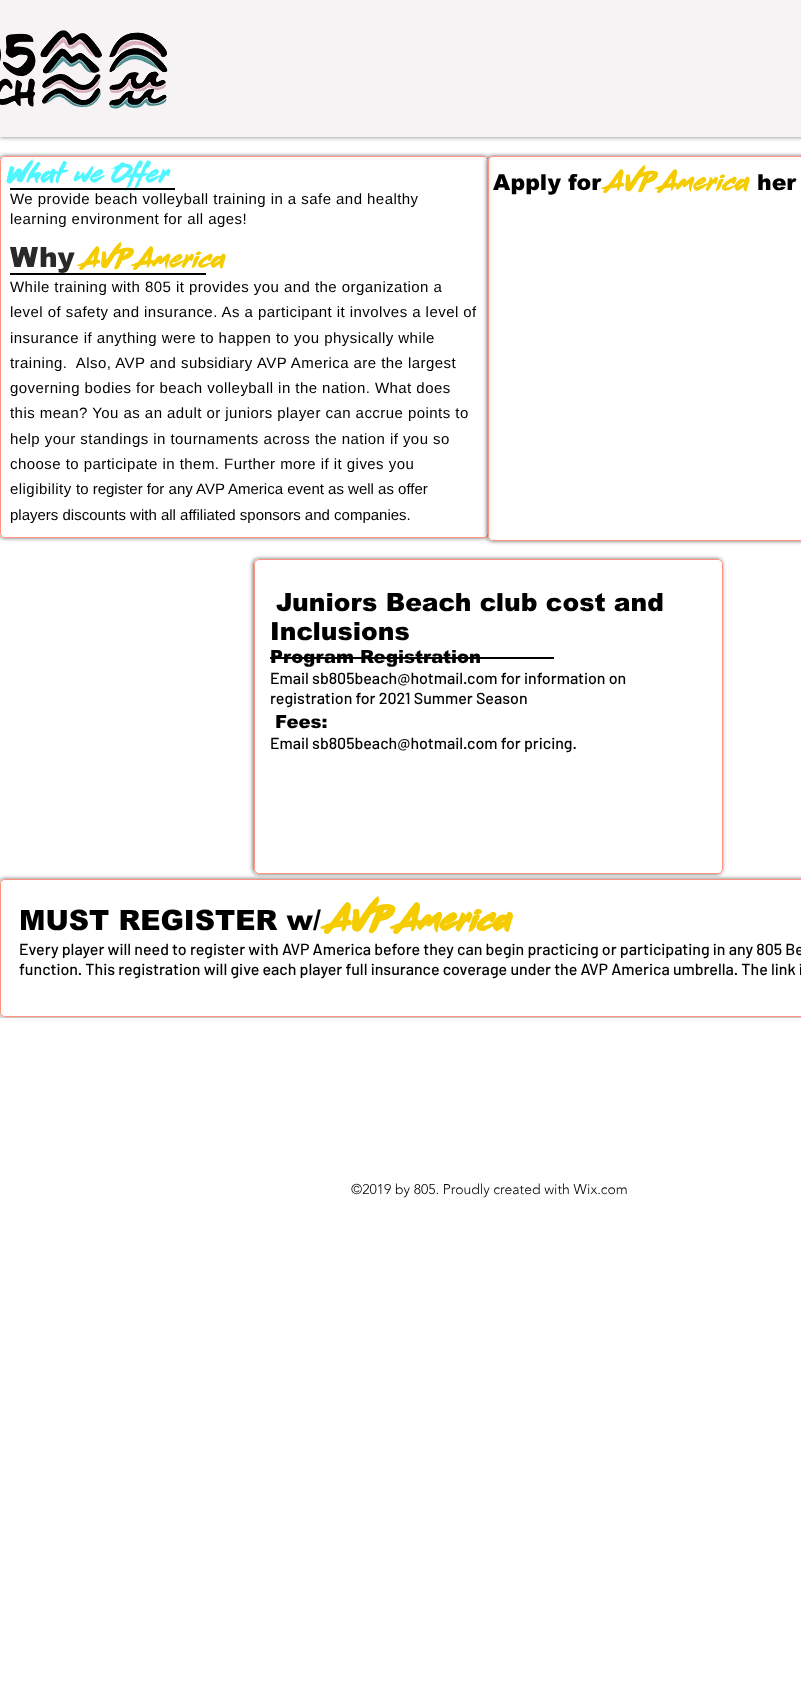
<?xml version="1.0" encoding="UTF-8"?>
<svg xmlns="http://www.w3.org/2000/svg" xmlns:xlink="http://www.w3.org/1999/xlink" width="801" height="1683">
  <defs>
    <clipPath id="clip1"><path d="M 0 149 h 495 v 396 h -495 z m 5 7 h 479 c 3 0 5 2 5 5 v 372 c 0 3 -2 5 -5 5 h -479 c -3 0 -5 -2 -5 -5 v -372 c 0 -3 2 -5 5 -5 z" clip-rule="evenodd" /></clipPath>
    <clipPath id="clip2"><path d="M 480 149 h 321 v 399 h -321 z m 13 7 h 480 c 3 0 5 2 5 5 v 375 c 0 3 -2 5 -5 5 h -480 c -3 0 -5 -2 -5 -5 v -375 c 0 -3 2 -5 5 -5 z" clip-rule="evenodd" /></clipPath>
    <clipPath id="clip3"><path d="M 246 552 h 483 v 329 h -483 z m 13 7 h 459 c 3 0 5 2 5 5 v 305 c 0 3 -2 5 -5 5 h -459 c -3 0 -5 -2 -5 -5 v -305 c 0 -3 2 -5 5 -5 z" clip-rule="evenodd" /></clipPath>
    <clipPath id="clip4"><path d="M 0 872 h 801 v 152 h -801 z m 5 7 h 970 c 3 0 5 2 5 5 v 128 c 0 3 -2 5 -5 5 h -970 c -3 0 -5 -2 -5 -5 v -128 c 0 -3 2 -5 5 -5 z" clip-rule="evenodd" /></clipPath>
  </defs>
  <rect width="100%" height="100%" fill="#ffffff" />
  <rect width="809" height="137" fill="#000000" fill-opacity="0.5" filter="blur(2.5px)" />
  <rect width="801" height="137" fill="#f6f3f4" />
  <image x="0" y="30" width="168" height="79" xlink:href="image1.png" />
  <g clip-path="url(#clip1)">
    <rect x="-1" y="156" width="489" height="382" rx="5" fill="#000000" fill-opacity="0.6" filter="blur(2px)" />
  </g>
  <rect x="0.5" y="156.5" width="488" height="381" rx="4.5" fill="#ffffff" fill-opacity="0.57" stroke="#ff937d" />
  <rect x="10" y="273" width="196" height="2" fill="#000000" />
  <g clip-path="url(#clip2)">
    <rect x="487" y="156" width="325" height="385" rx="5" fill="#000000" fill-opacity="0.6" filter="blur(2px)" />
  </g>
  <rect x="488.5" y="156.5" width="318" height="384" rx="4.5" fill="#ffffff" fill-opacity="0.57" stroke="#ff937d" />
  <g clip-path="url(#clip3)">
    <rect x="253" y="559" width="469" height="315" rx="5" fill="#000000" fill-opacity="0.6" filter="blur(2px)" />
  </g>
  <rect x="254.5" y="559.5" width="468" height="314" rx="4.5" fill="#ffffff" fill-opacity="0.57" stroke="#ff937d" />
  <rect x="270" y="657" width="284" height="2" fill="#000000" />
  <g clip-path="url(#clip4)">
    <rect x="-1" y="879" width="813" height="138" rx="5" fill="#000000" fill-opacity="0.6" filter="blur(2px)" />
  </g>
  <rect x="0.5" y="879.5" width="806" height="137" rx="4.5" fill="#ffffff" fill-opacity="0.57" stroke="#ff937d" />
  <rect y="1017" width="801" height="1" fill="#ffffff" fill-opacity="0.15" />
  <rect y="1018" width="801" height="3" fill="#ffffff" fill-opacity="0.89" />
  <text x="7" y="182" style="font-family: 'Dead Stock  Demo'; font-size: 28px; fill: #4ff6ff">What we Offer</text>
  <rect x="10" y="188" width="165" height="2" fill="#000000" />
  <text x="10" y="204" style="font-family: Liberation Sans; font-size: 15px; letter-spacing: 0.45px; fill: #000000">We provide beach volleyball training in a safe and healthy</text>
  <text x="10" y="224" style="font-family: Liberation Sans; font-size: 15px; letter-spacing: 0.45px; fill: #000000">learning environment for all ages!</text>
  <text x="10" y="267" style="font-family: arial; font-size: 28px; font-weight: 900; fill: #292929">Why</text>
  <text x="84" y="267" style="font-family: 'Dead Stock  Demo'; font-size: 28px; fill: #f5cc00">AVP America</text>
  <text x="10" y="292" style="font-family: Liberation Sans; font-size: 15px; letter-spacing: 0.45px; fill: #000000">While training with 805 it provides you and the organization a</text>
  <text x="10" y="317" style="font-family: Liberation Sans; font-size: 15px; letter-spacing: 0.45px; fill: #000000">level of safety and insurance. As a participant it involves a level of</text>
  <text x="10" y="343" style="font-family: Liberation Sans; font-size: 15px; letter-spacing: 0.45px; fill: #000000">insurance if anything were to happen to you physically while</text>
  <text x="10" y="368" style="font-family: Liberation Sans; font-size: 15px; letter-spacing: 0.45px; fill: #000000" xml:space="preserve">training.  Also, AVP and</text>
  <text x="181" y="368" style="font-family: Liberation Sans; font-size: 15px; letter-spacing: 0.4px; fill: #000000">subsidiary</text>
  <text x="257" y="368" style="font-family: Liberation Sans; font-size: 15px; letter-spacing: 0.45px; fill: #000000">AVP America are the largest</text>
  <text x="10" y="393" style="font-family: Liberation Sans; font-size: 15px; letter-spacing: 0.45px; fill: #000000">governing bodies for beach volleyball in the nation. What does</text>
  <text x="10" y="418" style="font-family: Liberation Sans; font-size: 15px; letter-spacing: 0.45px; fill: #000000">this mean? You as an adult or juniors player can accrue points to</text>
  <text x="10" y="444" style="font-family: Liberation Sans; font-size: 15px; letter-spacing: 0.45px; fill: #000000">help your standings in tournaments across the nation if you so</text>
  <text x="10" y="469" style="font-family: Liberation Sans; font-size: 15px; letter-spacing: 0.45px; fill: #000000">choose to participate in them. Further more if it gives you</text>
  <text x="10" y="494" style="font-family: Liberation Sans; font-size: 15px; letter-spacing: 0.45px; fill: #000000">eligibility</text>
  <text x="76" y="494" style="font-family: Liberation Sans; font-size: 15px; fill: #000000">to register for any AVP America event as well as offer</text>
  <text x="10" y="520" style="font-family: Liberation Sans; font-size: 15px; fill: #000000">players discounts with all affiliated sponsors and companies.</text>
  <text x="493" y="190" style="font-family: arial; font-size: 22px; font-weight: 900; fill: #000000">Apply for</text>
  <text x="608" y="190" style="font-family: 'Dead Stock  Demo'; font-size: 28px; fill: #f5cc00">AVP America</text>
  <text x="757" y="190" style="font-family: arial; font-size: 22px; font-weight: 900; fill: #000000">her</text>
  <text x="276" y="611" style="font-family: arial; font-size: 25px; font-weight: 900; fill: #000000">Juniors Beach club cost and</text>
  <text x="270" y="640" style="font-family: arial; font-size: 25px; font-weight: 900; fill: #000000">Inclusions</text>
  <text x="270" y="663" style="font-family: arial; font-size: 18px; font-weight: 900; fill: #000000">Program Registration</text>
  <text x="270" y="684" style="font-family: Barlow; font-size: 16px; font-weight: 500; fill: #000000">Email sb805beach@hotmail.com for information on</text>
  <text x="270" y="704" style="font-family: Barlow; font-size: 16px; font-weight: 500; fill: #000000">registration for 2021 Summer Season</text>
  <text x="275" y="728" style="font-family: arial; font-size: 18px; font-weight: 900; fill: #000000">Fees:</text>
  <text x="270" y="749" style="font-family: Barlow; font-size: 16px; font-weight: 500; fill: #000000">Email sb805beach@hotmail.com for pricing.</text>
  <text x="19" y="930" style="font-family: arial; font-size: 28px; font-weight: 900; fill: #000000">MUST REGISTER w/</text>
  <text x="330" y="930" style="font-family: 'Dead Stock  Demo'; font-size: 36px; font-weight: bold; fill: #f5cc00">AVP America</text>
  <text x="19" y="955" style="font-family: Barlow; font-size: 16px; font-weight: 500; fill: #000000">Every player will need to register with AVP America before they can begin practicing or participating in any 805 Be</text>
  <text x="19" y="975" style="font-family: Barlow; font-size: 16px; font-weight: 500; fill: #000000">function. This registration will give each player full insurance coverage under the AVP America umbrella. The link i</text>
  <text x="351" y="1194" style="font-family: 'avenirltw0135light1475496'; font-size: 14px; font-weight: 300; fill: #000000">©2019 by 805. Proudly created with Wix.com</text>
</svg>
